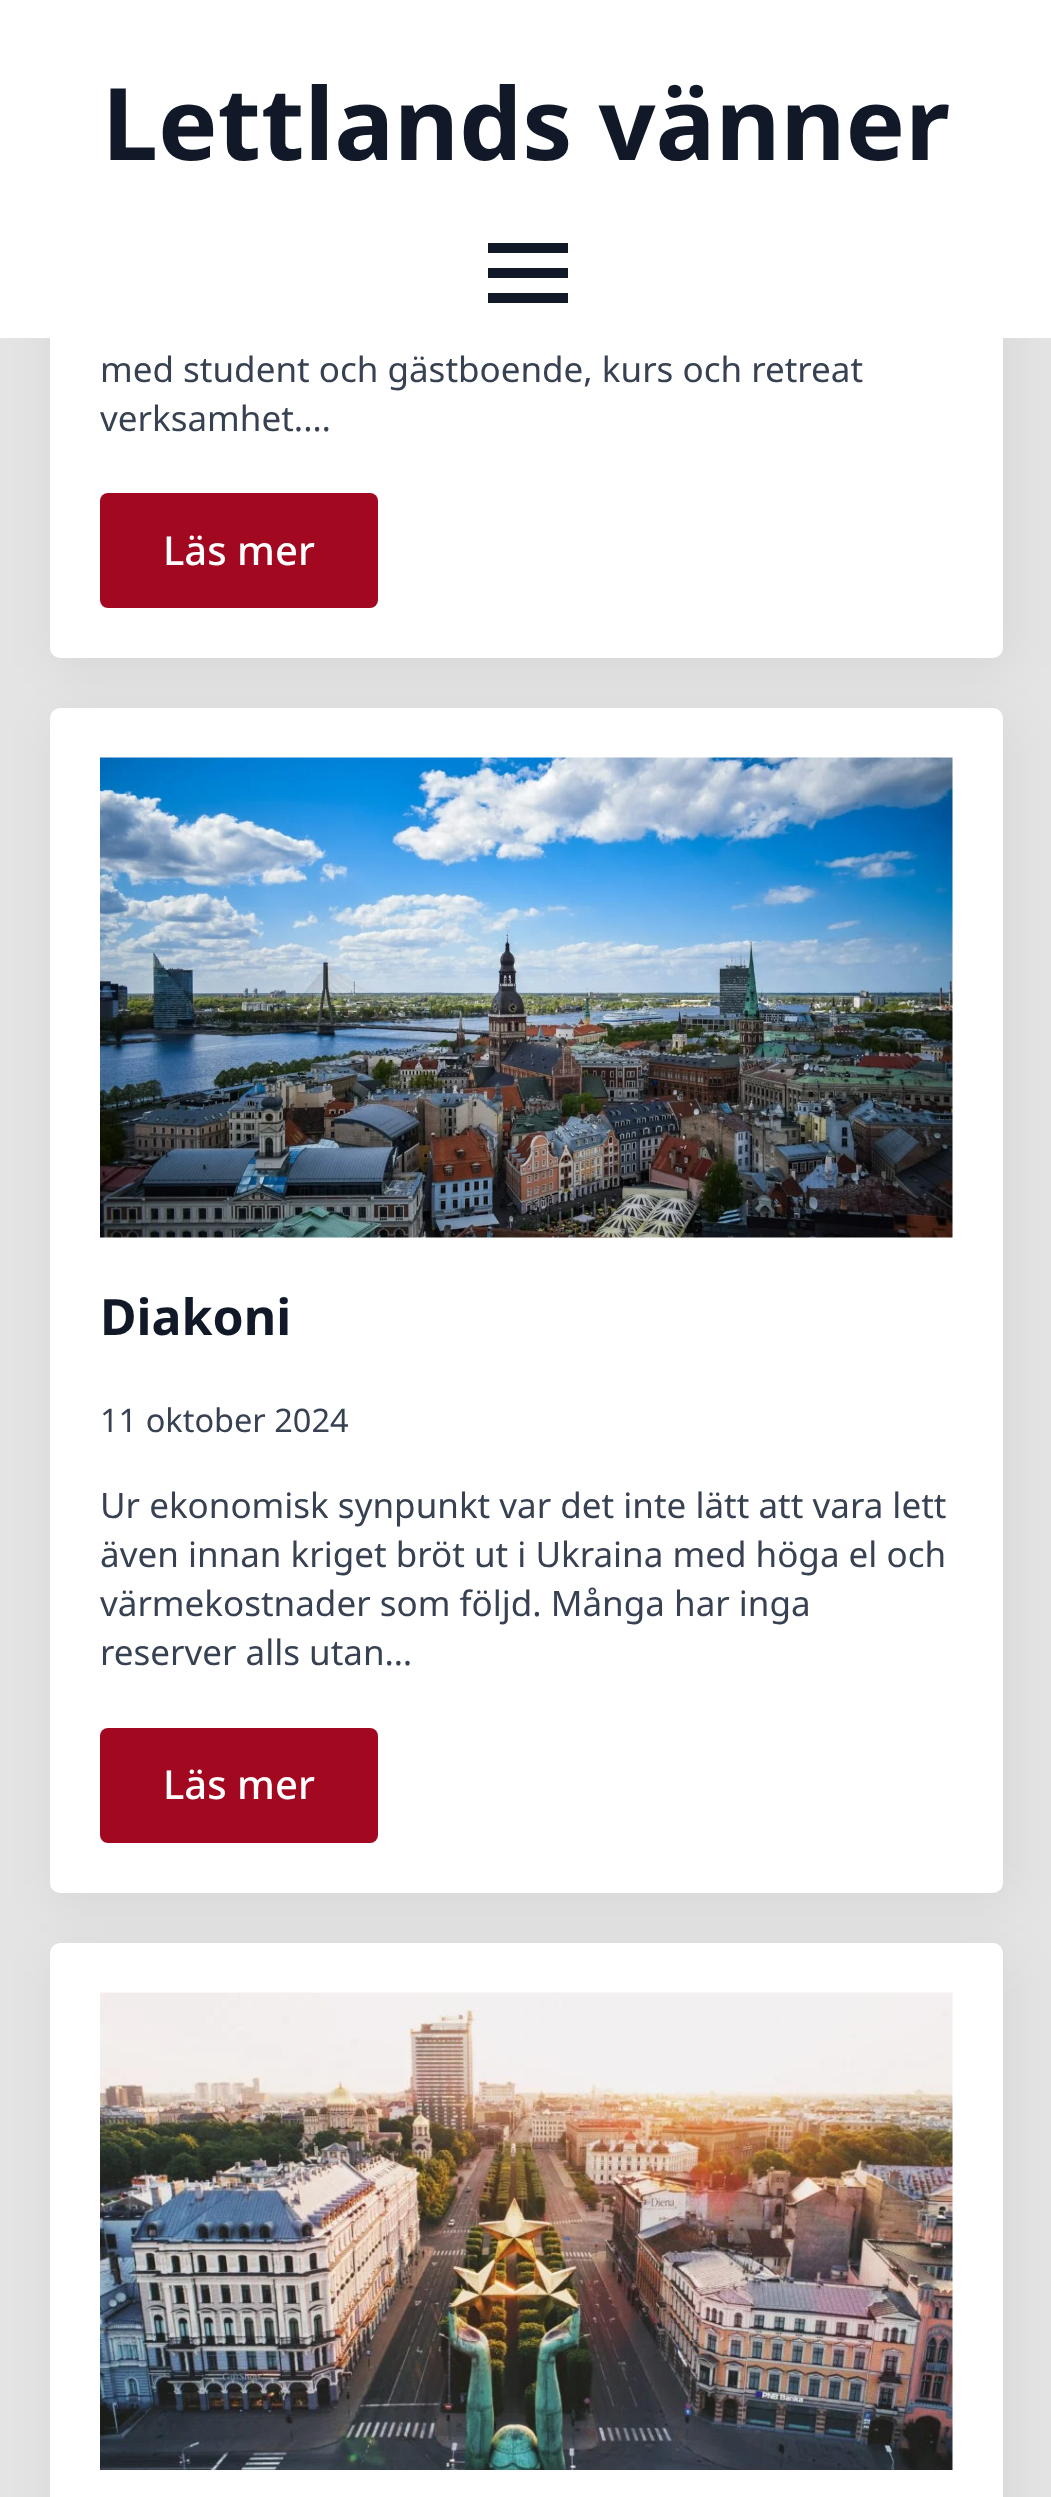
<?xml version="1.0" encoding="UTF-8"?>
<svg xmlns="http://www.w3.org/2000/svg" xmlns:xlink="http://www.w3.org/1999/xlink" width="1051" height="2497">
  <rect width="100%" height="100%" fill="#e4e4e4" />
  <rect x="55" y="-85" width="953" height="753" rx="10" fill="#000000" fill-opacity="0.06" filter="blur(25px)" />
  <rect x="50" y="-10" width="953" height="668" rx="10" fill="#ffffff" />
  <rect width="1051" height="338" fill="#ffffff" />
  <rect x="488" y="268" width="80" height="10" fill="#111827" />
  <rect x="488" y="243" width="80" height="10" fill="#111827" />
  <rect x="488" y="293" width="80" height="10" fill="#111827" />
  <rect x="100" y="493" width="278" height="115" rx="8" fill="#a30821" />
  <rect x="55" y="718" width="953" height="1185" rx="10" fill="#000000" fill-opacity="0.06" filter="blur(25px)" />
  <rect x="50" y="708" width="953" height="1185" rx="10" fill="#ffffff" />
  <image x="100" y="757" width="853" height="481" xlink:href="image1.png" />
  <rect x="100" y="1728" width="278" height="115" rx="8" fill="#a30821" />
  <rect x="55" y="1953" width="953" height="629" rx="10" fill="#000000" fill-opacity="0.06" filter="blur(25px)" />
  <rect x="50" y="1943" width="953" height="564" rx="10" fill="#ffffff" />
  <image x="100" y="1992" width="853" height="478" xlink:href="image2.png" />
  <text x="102" y="160" style="font-family: Noto Sans; font-size: 100px; font-weight: bold; fill: #111827">Lettlands vänner</text>
  <text x="100" y="382" style="font-family: Noto Sans; font-size: 35px; fill: #374151">med student och gästboende, kurs och retreat</text>
  <text x="100" y="431" style="font-family: Noto Sans; font-size: 35px; fill: #374151">verksamhet.…</text>
  <text x="163" y="565" style="font-family: Noto Sans; font-size: 40px; font-weight: 500; fill: #ffffff">Läs mer</text>
  <text x="100" y="1335" style="font-family: Noto Sans; font-size: 50px; font-weight: bold; fill: #111827">Diakoni</text>
  <text x="100" y="1432" style="font-family: Noto Sans; font-size: 32.5px; fill: #374151">11 oktober 2024</text>
  <text x="100" y="1518" style="font-family: Noto Sans; font-size: 35px; fill: #374151">Ur ekonomisk synpunkt var det inte lätt att vara lett</text>
  <text x="100" y="1567" style="font-family: Noto Sans; font-size: 35px; fill: #374151">även innan kriget bröt ut i Ukraina med höga el och</text>
  <text x="100" y="1616" style="font-family: Noto Sans; font-size: 35px; fill: #374151">värmekostnader som följd. Många har inga</text>
  <text x="100" y="1665" style="font-family: Noto Sans; font-size: 35px; fill: #374151">reserver alls utan…</text>
  <text x="163" y="1799" style="font-family: Noto Sans; font-size: 40px; font-weight: 500; fill: #ffffff">Läs mer</text>
</svg>
